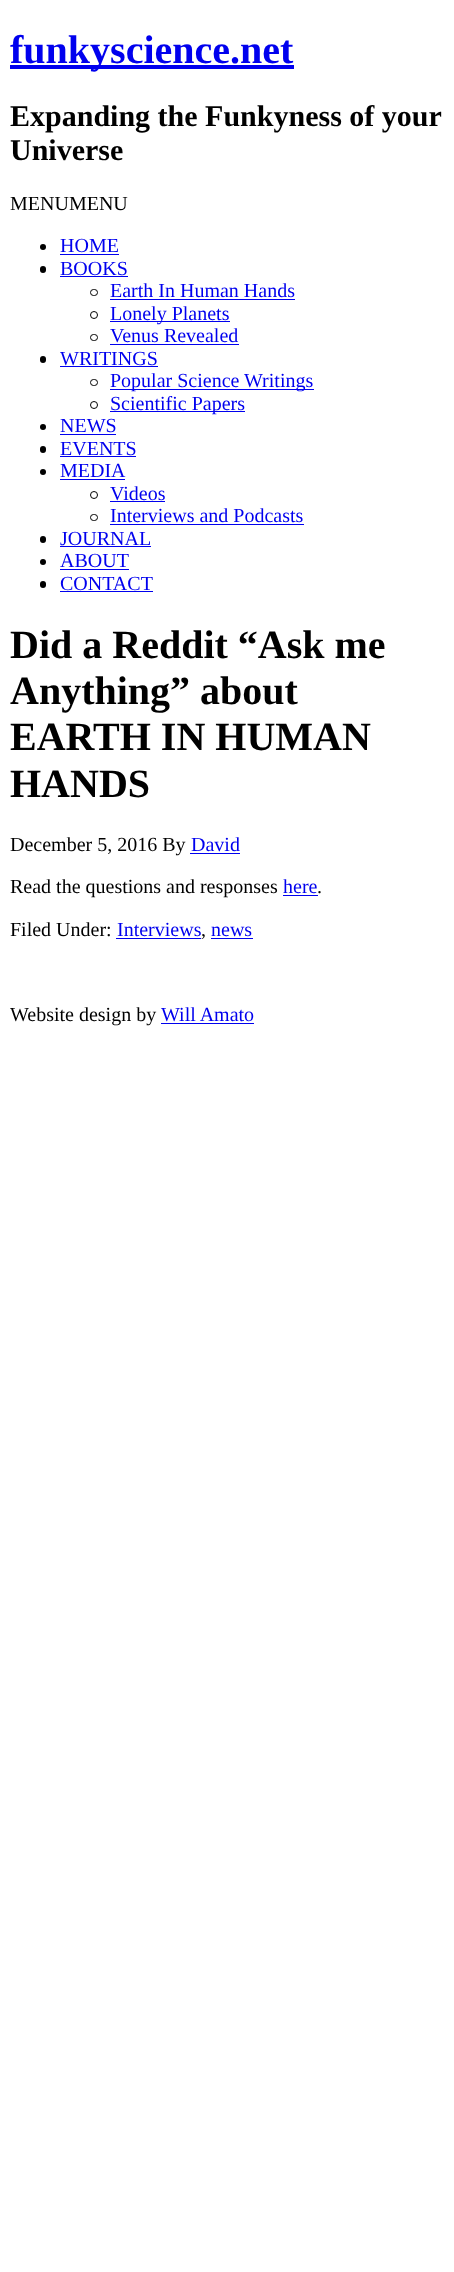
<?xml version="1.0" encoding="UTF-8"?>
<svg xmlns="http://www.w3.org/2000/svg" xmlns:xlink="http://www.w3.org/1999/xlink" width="454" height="2272">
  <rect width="100%" height="100%" fill="#ffffff" />
  <rect x="10" y="65" width="284" height="4" fill="#0000ee" />
  <circle cx="43" cy="247" r="3" fill="#000000" />
  <rect x="60" y="254" width="59" height="1" fill="#0000ee" />
  <rect x="40" y="266" width="6" height="7" rx="3" fill="#000000" />
  <rect x="60" y="276" width="68" height="1" fill="#0000ee" />
  <rect x="90.5" y="289.5" width="7" height="6" rx="3" fill="none" stroke="#000000" />
  <rect x="110" y="299" width="185" height="1" fill="#0000ee" />
  <circle cx="94" cy="315" r="3.5" fill="none" stroke="#000000" />
  <rect x="110" y="321" width="120" height="1" fill="#0000ee" />
  <rect x="90.5" y="334.5" width="7" height="6" rx="3" fill="none" stroke="#000000" />
  <rect x="110" y="344" width="129" height="1" fill="#0000ee" />
  <rect x="40" y="356" width="6" height="7" rx="3" fill="#000000" />
  <rect x="60" y="366" width="98" height="1" fill="#0000ee" />
  <rect x="90.5" y="379.5" width="7" height="6" rx="3" fill="none" stroke="#000000" />
  <rect x="110" y="389" width="204" height="1" fill="#0000ee" />
  <circle cx="94" cy="405" r="3.5" fill="none" stroke="#000000" />
  <rect x="110" y="411" width="135" height="1" fill="#0000ee" />
  <circle cx="43" cy="427" r="3" fill="#000000" />
  <rect x="60" y="434" width="56" height="1" fill="#0000ee" />
  <rect x="40" y="446" width="6" height="7" rx="3" fill="#000000" />
  <rect x="60" y="456" width="76" height="1" fill="#0000ee" />
  <circle cx="43" cy="472" r="3" fill="#000000" />
  <rect x="60" y="479" width="65" height="1" fill="#0000ee" />
  <circle cx="94" cy="495" r="3.5" fill="none" stroke="#000000" />
  <rect x="110" y="501" width="55" height="1" fill="#0000ee" />
  <rect x="90.5" y="514.5" width="7" height="6" rx="3" fill="none" stroke="#000000" />
  <rect x="110" y="524" width="194" height="1" fill="#0000ee" />
  <rect x="40" y="536" width="6" height="7" rx="3" fill="#000000" />
  <rect x="60" y="546" width="91" height="1" fill="#0000ee" />
  <circle cx="43" cy="562" r="3" fill="#000000" />
  <rect x="60" y="569" width="69" height="1" fill="#0000ee" />
  <rect x="40" y="581" width="6" height="7" rx="3" fill="#000000" />
  <rect x="60" y="591" width="93" height="1" fill="#0000ee" />
  <rect x="190" y="853" width="50" height="1" fill="#0000ee" />
  <rect x="283" y="895" width="35" height="1" fill="#0000ee" />
  <rect x="116" y="938" width="85" height="1" fill="#0000ee" />
  <rect x="211" y="938" width="42" height="1" fill="#0000ee" />
  <rect x="161" y="1023" width="93" height="1" fill="#0000ee" />
  <text x="10" y="63" style="font-family: Liberation Serif; font-size: 40px; font-weight: bold; fill: #0000ee">funkyscience.net</text>
  <text x="10" y="126" style="font-family: Liberation Serif; font-size: 30px; font-weight: bold; fill: #000000">Expanding the Funkyness of your</text>
  <text x="10" y="160" style="font-family: Liberation Serif; font-size: 30px; font-weight: bold; fill: #000000">Universe</text>
  <text x="10" y="210" style="font-family: Liberation Serif; font-size: 20px; fill: #000000">MENUMENU</text>
  <text x="60" y="252" style="font-family: Liberation Serif; font-size: 20px; fill: #0000ee">HOME</text>
  <text x="60" y="275" style="font-family: Liberation Serif; font-size: 20px; fill: #0000ee">BOOKS</text>
  <text x="110" y="297" style="font-family: Liberation Serif; font-size: 20px; fill: #0000ee">Earth In Human Hands</text>
  <text x="110" y="320" style="font-family: Liberation Serif; font-size: 20px; fill: #0000ee">Lonely Planets</text>
  <text x="110" y="342" style="font-family: Liberation Serif; font-size: 20px; fill: #0000ee">Venus Revealed</text>
  <text x="60" y="365" style="font-family: Liberation Serif; font-size: 20px; fill: #0000ee">WRITINGS</text>
  <text x="110" y="387" style="font-family: Liberation Serif; font-size: 20px; fill: #0000ee">Popular Science Writings</text>
  <text x="110" y="410" style="font-family: Liberation Serif; font-size: 20px; fill: #0000ee">Scientific Papers</text>
  <text x="60" y="432" style="font-family: Liberation Serif; font-size: 20px; fill: #0000ee">NEWS</text>
  <text x="60" y="455" style="font-family: Liberation Serif; font-size: 20px; fill: #0000ee">EVENTS</text>
  <text x="60" y="477" style="font-family: Liberation Serif; font-size: 20px; fill: #0000ee">MEDIA</text>
  <text x="110" y="500" style="font-family: Liberation Serif; font-size: 20px; fill: #0000ee">Videos</text>
  <text x="110" y="522" style="font-family: Liberation Serif; font-size: 20px; fill: #0000ee">Interviews and Podcasts</text>
  <text x="60" y="545" style="font-family: Liberation Serif; font-size: 20px; fill: #0000ee">JOURNAL</text>
  <text x="60" y="567" style="font-family: Liberation Serif; font-size: 20px; fill: #0000ee">ABOUT</text>
  <text x="60" y="590" style="font-family: Liberation Serif; font-size: 20px; fill: #0000ee">CONTACT</text>
  <text x="10" y="658" style="font-family: Liberation Serif; font-size: 40px; font-weight: bold; fill: #000000">Did a Reddit “Ask me</text>
  <text x="10" y="704" style="font-family: Liberation Serif; font-size: 40px; font-weight: bold; fill: #000000">Anything” about</text>
  <text x="10" y="750" style="font-family: Liberation Serif; font-size: 40px; font-weight: bold; fill: #000000">EARTH IN HUMAN</text>
  <text x="10" y="797" style="font-family: Liberation Serif; font-size: 40px; font-weight: bold; fill: #000000">HANDS</text>
  <text x="10" y="851" style="font-family: Liberation Serif; font-size: 20px; fill: #000000">December 5, 2016 By</text>
  <text x="191" y="851" style="font-family: Liberation Serif; font-size: 20px; fill: #0000ee">David</text>
  <text x="10" y="893" style="font-family: Liberation Serif; font-size: 20px; fill: #000000">Read the questions and responses</text>
  <text x="283" y="893" style="font-family: Liberation Serif; font-size: 20px; fill: #0000ee">here</text>
  <text x="317" y="893" style="font-family: Liberation Serif; font-size: 20px; fill: #000000">.</text>
  <text x="10" y="936" style="font-family: Liberation Serif; font-size: 20px; fill: #000000">Filed Under:</text>
  <text x="117" y="936" style="font-family: Liberation Serif; font-size: 20px; fill: #0000ee">Interviews</text>
  <text x="201" y="936" style="font-family: Liberation Serif; font-size: 20px; fill: #000000">,</text>
  <text x="211" y="936" style="font-family: Liberation Serif; font-size: 20px; fill: #0000ee">news</text>
  <text x="10" y="1021" style="font-family: Liberation Serif; font-size: 20px; fill: #000000">Website design by</text>
  <text x="161" y="1021" style="font-family: Liberation Serif; font-size: 20px; fill: #0000ee">Will Amato</text>
</svg>
